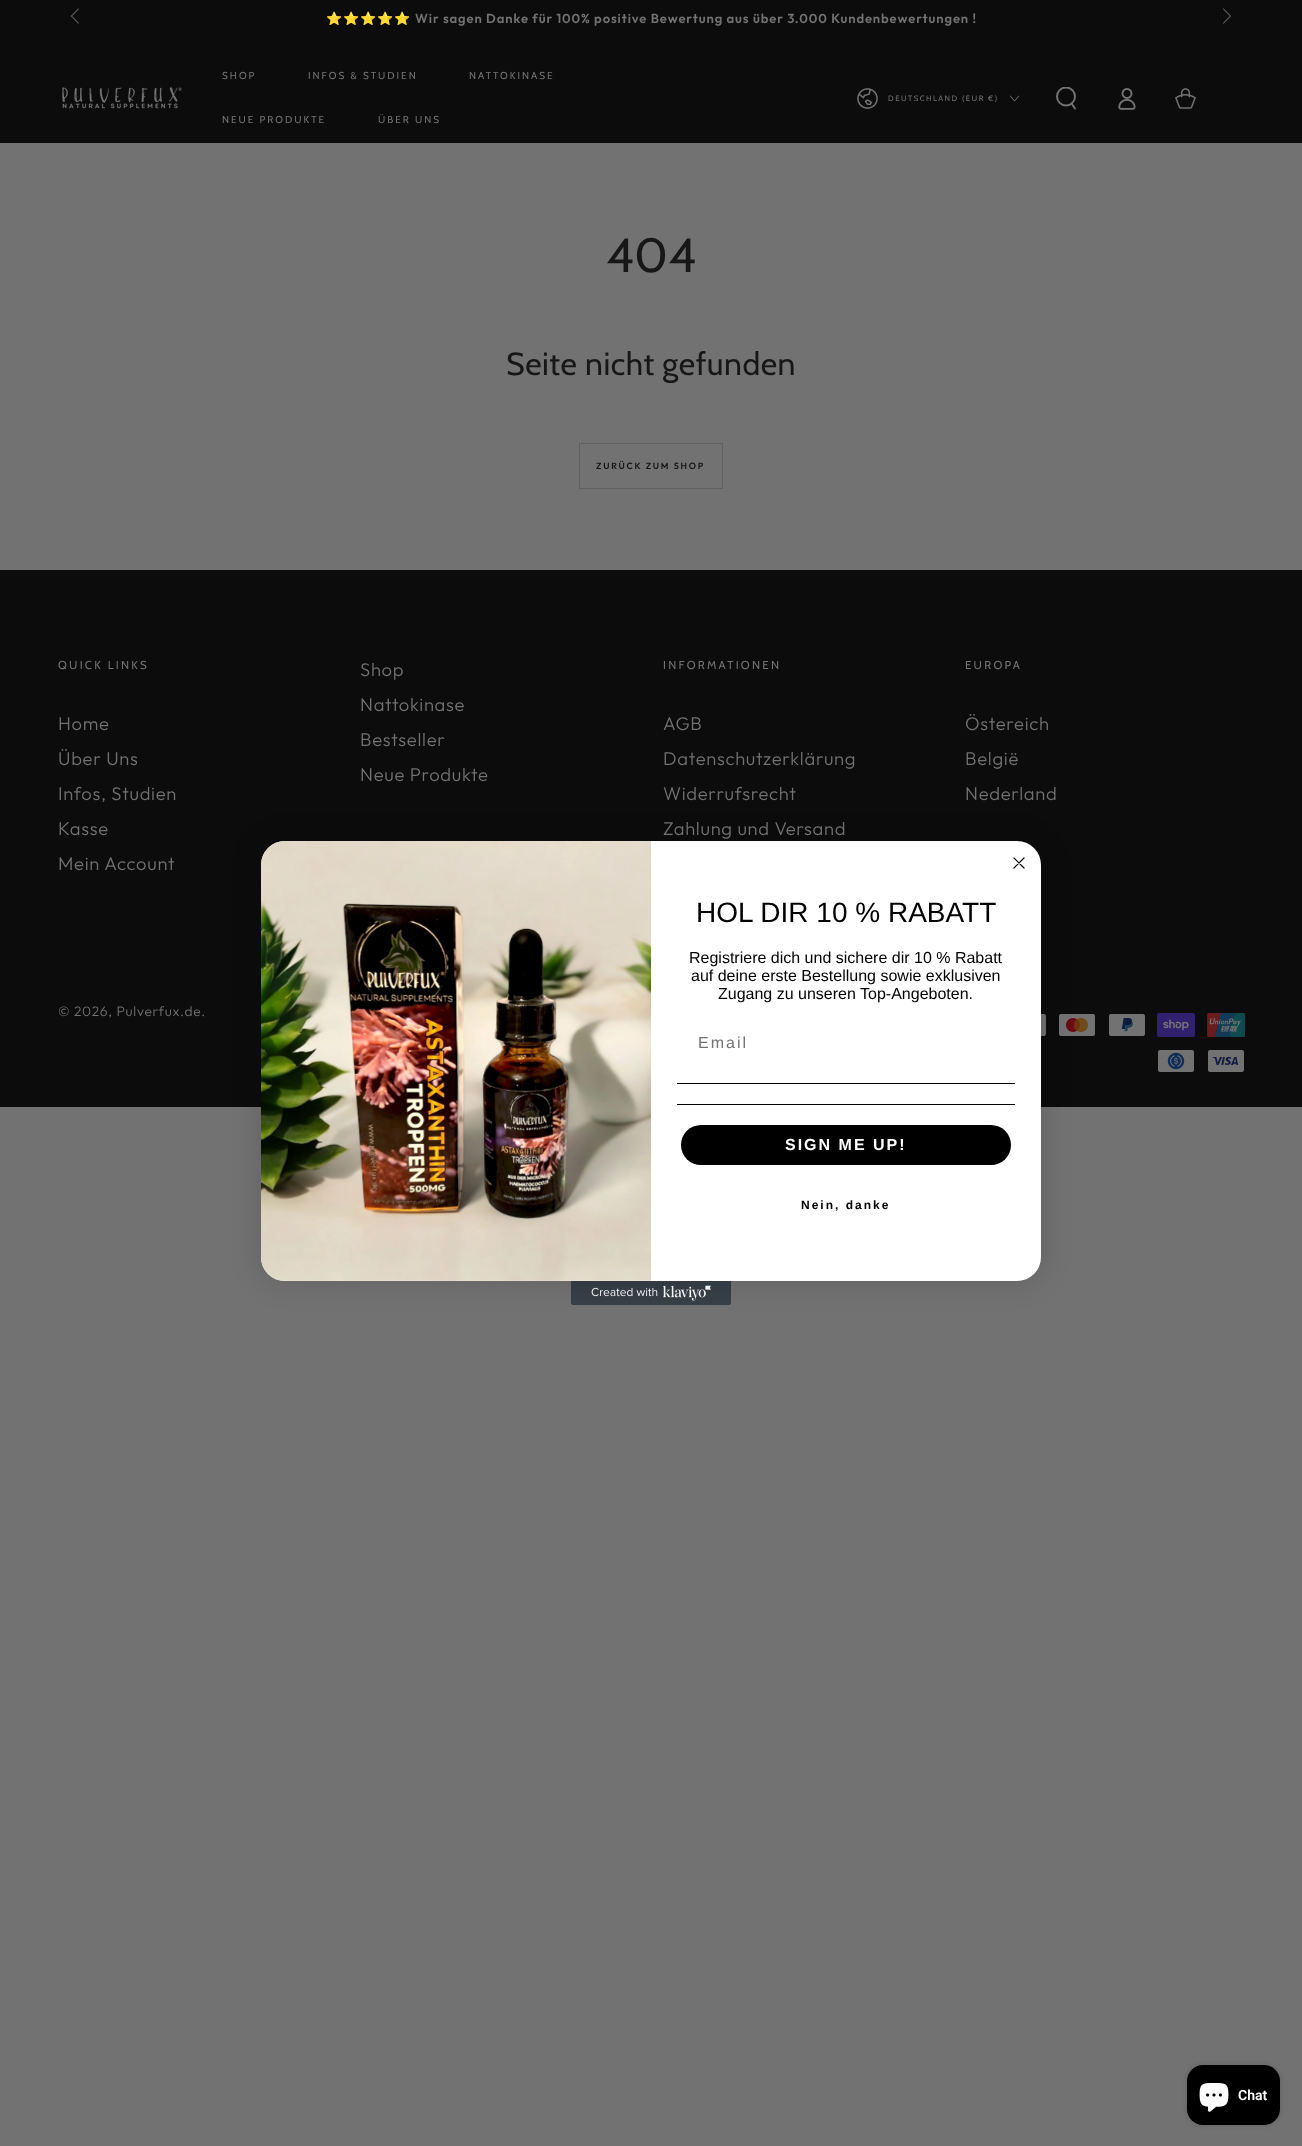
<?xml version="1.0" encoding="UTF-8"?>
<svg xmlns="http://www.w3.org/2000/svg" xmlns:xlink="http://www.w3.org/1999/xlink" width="1302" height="2146">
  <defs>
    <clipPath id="clip1"><rect x="1055" y="87" width="23" height="23" /></clipPath>
  </defs>
  <rect width="100%" height="100%" fill="#727272" />
  <rect width="1302" height="143" fill="#0c0c0c" />
  <image x="70" y="8" width="9" height="16" xlink:href="image1.png" />
  <image x="1223" y="8" width="9" height="16" xlink:href="image2.png" />
  <image x="62" y="87" width="120" height="22" xlink:href="image3.png" />
  <image x="857" y="88" width="21" height="21" xlink:href="image4.png" />
  <image x="1010" y="95" width="10" height="7" xlink:href="image5.png" />
  <g clip-path="url(#clip1)">
    <circle cx="1066" cy="96.5" r="9" fill="none" stroke="#727272" stroke-width="2" />
  </g>
  <path d="M 1071.5 103.5 l 3.5 5" fill="none" stroke="#727272" stroke-width="2" stroke-linecap="round" />
  <image x="1118" y="88" width="18" height="22" xlink:href="image6.png" />
  <image x="1175" y="88" width="21" height="21" xlink:href="image7.png" />
  <rect x="579.5" y="443.5" width="143" height="45" fill="none" stroke="#606163" />
  <rect y="570" width="1302" height="537" fill="#0c0c0c" />
  <image x="1041" y="1014" width="5" height="22" xlink:href="image8.png" />
  <image x="1059" y="1014" width="36" height="22" xlink:href="image9.png" />
  <image x="1109" y="1014" width="36" height="22" xlink:href="image10.png" />
  <image x="1157" y="1013" width="38" height="24" xlink:href="image11.png" />
  <image x="1207" y="1013" width="38" height="24" xlink:href="image12.png" />
  <image x="1158" y="1050" width="36" height="22" xlink:href="image13.png" />
  <image x="1208" y="1050" width="36" height="22" xlink:href="image14.png" />
  <image x="571" y="1281" width="160" height="24" xlink:href="image17.png" />
  <rect x="261" y="841" width="780" height="440" rx="24" fill="#000000" fill-opacity="0.15" filter="blur(15px)" />
  <rect x="261" y="841" width="780" height="440" rx="24" fill="#ffffff" />
  <path d="M 1014 858 l 10 10 m -10 0 l 10 -10 z" fill="none" stroke="#000000" stroke-width="1.2" stroke-linecap="round" stroke-linejoin="round" />
  <image x="261" y="841" width="390" height="440" xlink:href="image15.png" />
  <image x="677" y="1083" width="338" height="1" xlink:href="image16.png" />
  <image x="677" y="1104" width="338" height="1" xlink:href="image16.png" />
  <rect x="681" y="1125" width="330" height="40" rx="20" fill="#000000" />
  <rect x="1187" y="2065" width="93" height="60" rx="16" fill="#000000" fill-opacity="0.15" filter="blur(2.5px)" />
  <rect x="1187" y="2065" width="93" height="60" rx="16" fill="#000000" />
  <image x="1199" y="2083" width="30" height="29" xlink:href="image18.png" />
  <text x="326" y="23" style="font-family: Noto Color Emoji; font-size: 13px; font-weight: bold; letter-spacing: 0.9px; fill: #727272">⭐⭐⭐⭐⭐</text>
  <text x="415" y="23" style="font-family: Outfit; font-size: 13px; font-weight: 600; letter-spacing: 0.9px; fill: #727272">Wir sagen Danke für 100% positive Bewertung aus über 3.000 Kundenbewertungen !</text>
  <text x="222" y="79" style="font-family: Cabin; font-size: 10px; letter-spacing: 2px; fill: #727272">SHOP</text>
  <text x="308" y="79" style="font-family: Cabin; font-size: 10px; letter-spacing: 2px; fill: #727272">INFOS &amp; STUDIEN</text>
  <text x="469" y="79" style="font-family: Cabin; font-size: 10px; letter-spacing: 2px; fill: #727272">NATTOKINASE</text>
  <text x="222" y="123" style="font-family: Cabin; font-size: 10px; letter-spacing: 2px; fill: #727272">NEUE PRODUKTE</text>
  <text x="378" y="123" style="font-family: Cabin; font-size: 10px; letter-spacing: 2px; fill: #727272">ÜBER UNS</text>
  <text x="888" y="101" style="font-family: Cabin; font-size: 7.75px; letter-spacing: 1.5px; fill: #727272">DEUTSCHLAND (EUR €)</text>
  <text x="606" y="272" style="font-family: Cabin; font-size: 48px; letter-spacing: 0.5px; fill: #161716">404</text>
  <text x="506" y="375" style="font-family: Cabin; font-size: 32px; letter-spacing: 0.5px; fill: #161716">Seite nicht gefunden</text>
  <text x="596" y="469" style="font-family: Outfit; font-size: 9px; font-weight: 600; letter-spacing: 1.75px; fill: #161716">ZURÜCK ZUM SHOP</text>
  <text x="58" y="669" style="font-family: Cabin; font-size: 11.5px; letter-spacing: 2.25px; fill: #727272">QUICK LINKS</text>
  <text x="58" y="730" style="font-family: Outfit; font-size: 18.4px; font-weight: 300; letter-spacing: 0.7px; fill: #727272">Home</text>
  <text x="58" y="765" style="font-family: Outfit; font-size: 18.4px; font-weight: 300; letter-spacing: 0.7px; fill: #727272">Über Uns</text>
  <text x="58" y="800" style="font-family: Outfit; font-size: 18.4px; font-weight: 300; letter-spacing: 0.7px; fill: #727272">Infos, Studien</text>
  <text x="58" y="835" style="font-family: Outfit; font-size: 18.4px; font-weight: 300; letter-spacing: 0.7px; fill: #727272">Kasse</text>
  <text x="58" y="870" style="font-family: Outfit; font-size: 18.4px; font-weight: 300; letter-spacing: 0.7px; fill: #727272">Mein Account</text>
  <text x="360" y="676" style="font-family: Outfit; font-size: 18.4px; font-weight: 300; letter-spacing: 0.7px; fill: #727272">Shop</text>
  <text x="360" y="711" style="font-family: Outfit; font-size: 18.4px; font-weight: 300; letter-spacing: 0.7px; fill: #727272">Nattokinase</text>
  <text x="360" y="746" style="font-family: Outfit; font-size: 18.4px; font-weight: 300; letter-spacing: 0.7px; fill: #727272">Bestseller</text>
  <text x="360" y="781" style="font-family: Outfit; font-size: 18.4px; font-weight: 300; letter-spacing: 0.7px; fill: #727272">Neue Produkte</text>
  <text x="663" y="669" style="font-family: Cabin; font-size: 11.5px; letter-spacing: 2.25px; fill: #727272">INFORMATIONEN</text>
  <text x="663" y="730" style="font-family: Outfit; font-size: 18.4px; font-weight: 300; letter-spacing: 0.7px; fill: #727272">AGB</text>
  <text x="663" y="765" style="font-family: Outfit; font-size: 18.4px; font-weight: 300; letter-spacing: 0.7px; fill: #727272">Datenschutzerklärung</text>
  <text x="663" y="800" style="font-family: Outfit; font-size: 18.4px; font-weight: 300; letter-spacing: 0.7px; fill: #727272">Widerrufsrecht</text>
  <text x="663" y="835" style="font-family: Outfit; font-size: 18.4px; font-weight: 300; letter-spacing: 0.7px; fill: #727272">Zahlung und Versand</text>
  <text x="965" y="669" style="font-family: Cabin; font-size: 11.5px; letter-spacing: 2.25px; fill: #727272">EUROPA</text>
  <text x="965" y="730" style="font-family: Outfit; font-size: 18.4px; font-weight: 300; letter-spacing: 0.7px; fill: #727272">Östereich</text>
  <text x="965" y="765" style="font-family: Outfit; font-size: 18.4px; font-weight: 300; letter-spacing: 0.7px; fill: #727272">België</text>
  <text x="965" y="800" style="font-family: Outfit; font-size: 18.4px; font-weight: 300; letter-spacing: 0.7px; fill: #727272">Nederland</text>
  <text x="58" y="1016" style="font-family: Outfit; font-size: 13.75px; font-weight: 300; letter-spacing: 0.7px; fill: #727272">© 2026, Pulverfux.de.</text>
  <text x="696" y="922" style="font-family: Liberation Sans; font-size: 28px; fill: #000000">HOL DIR 10 % RABATT</text>
  <text x="689" y="963" style="font-family: Liberation Sans; font-size: 16px; fill: #000000">Registriere dich und sichere dir 10 % Rabatt</text>
  <text x="691" y="981" style="font-family: Liberation Sans; font-size: 16px; fill: #000000">auf deine erste Bestellung sowie exklusiven</text>
  <text x="718" y="999" style="font-family: Liberation Sans; font-size: 16px; fill: #000000">Zugang zu unseren Top-Angeboten.</text>
  <text x="698" y="1048" style="font-family: Liberation Sans; font-size: 16px; letter-spacing: 2px; fill: #727272">Email</text>
  <text x="785" y="1150" style="font-family: Liberation Sans; font-size: 16px; font-weight: bold; letter-spacing: 2px; fill: #ffffff">SIGN ME UP!</text>
  <text x="801" y="1209" style="font-family: Liberation Sans; font-size: 12px; font-weight: bold; letter-spacing: 2px; fill: #000000">Nein, danke</text>
  <text x="1238" y="2100" style="font-family: Roboto; font-size: 14px; font-weight: 600; fill: #ffffff">Chat</text>
</svg>
